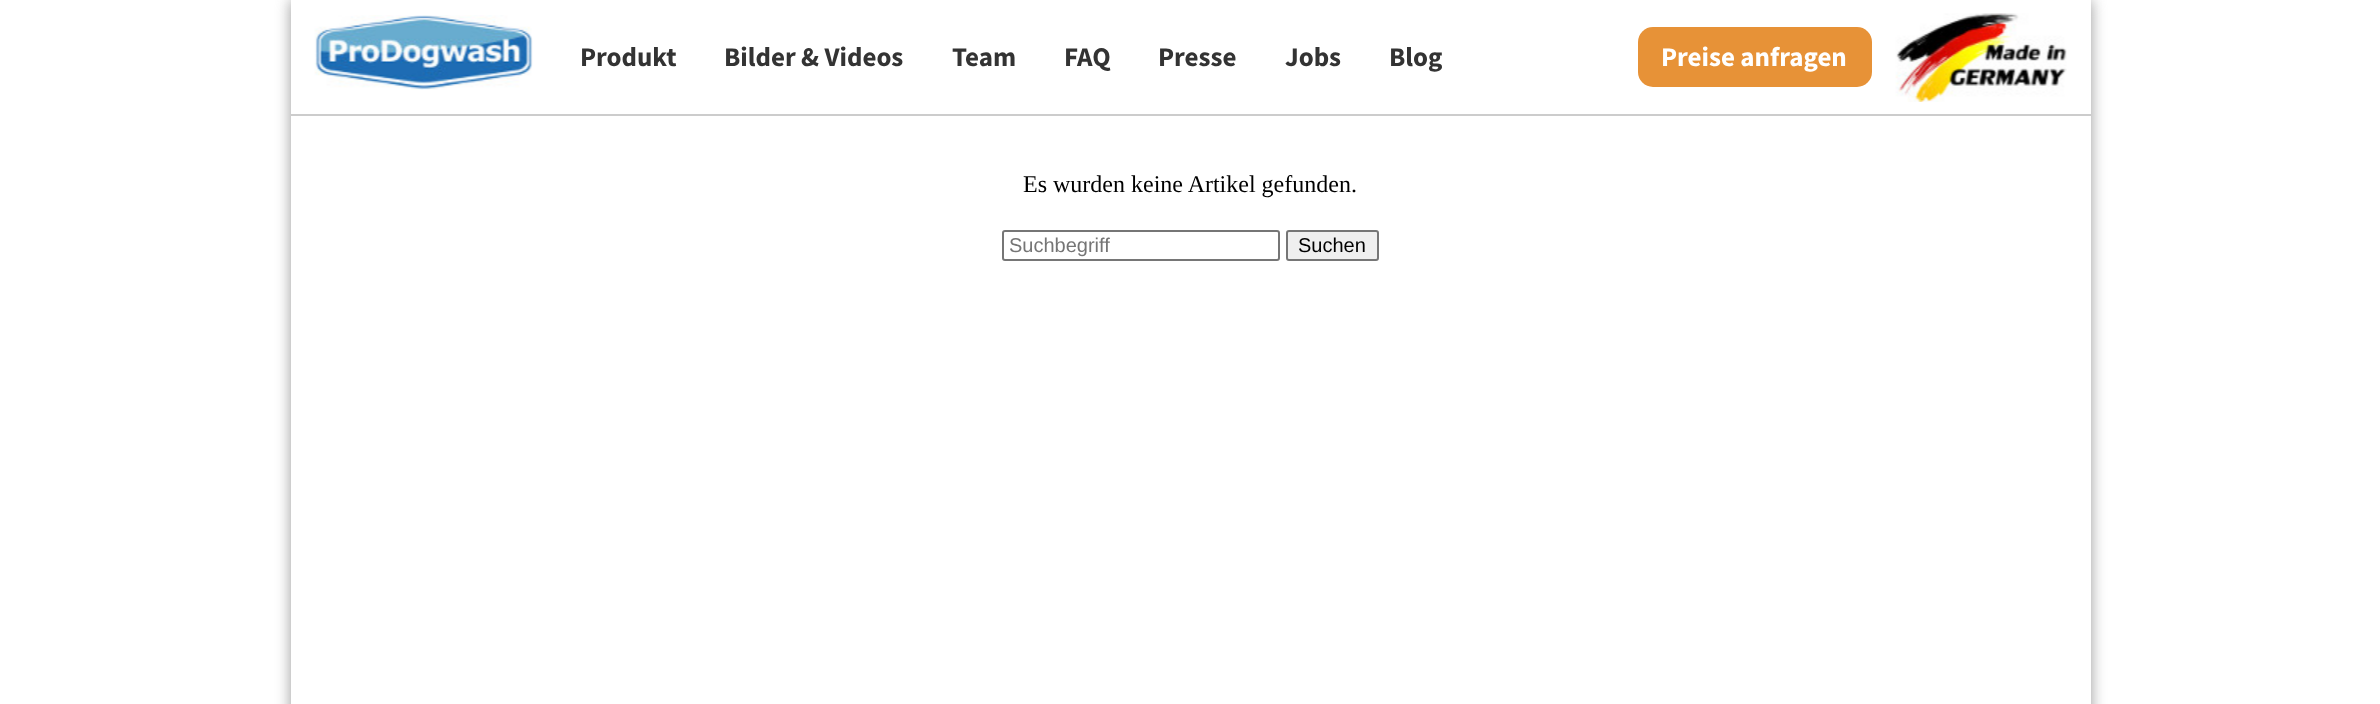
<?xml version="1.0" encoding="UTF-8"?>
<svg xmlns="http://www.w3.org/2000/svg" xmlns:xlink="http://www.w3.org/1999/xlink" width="2380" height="704">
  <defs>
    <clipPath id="clip1"><path d="M 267 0 h 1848 v 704 h -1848 z m 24 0 h 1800 v 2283 h -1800 z" clip-rule="evenodd" /></clipPath>
  </defs>
  <rect width="100%" height="100%" fill="#ffffff" />
  <g clip-path="url(#clip1)">
    <rect x="291" width="1800" height="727" fill="#999999" filter="blur(7.5px)" />
  </g>
  <rect x="291" y="114" width="1800" height="2" fill="#cccccc" />
  <image x="314" y="15" width="219" height="75" xlink:href="image1.png" />
  <rect x="1638" y="27" width="234" height="60" rx="15" fill="#e79237" />
  <image x="1895" y="13" width="172" height="89" xlink:href="image2.png" />
  <rect x="1003" y="231" width="276" height="29" rx="2" fill="none" stroke="#767676" stroke-width="2" />
  <rect x="1287" y="231" width="91" height="29" rx="2" fill="#efefef" stroke="#767676" stroke-width="2" />
  <text x="580" y="66" style="font-family: Source Sans Pro; font-size: 27px; font-weight: bold; fill: #333333">Produkt</text>
  <text x="724" y="66" style="font-family: Source Sans Pro; font-size: 27px; font-weight: bold; fill: #333333">Bilder &amp; Videos</text>
  <text x="952" y="66" style="font-family: Source Sans Pro; font-size: 27px; font-weight: bold; fill: #333333">Team</text>
  <text x="1064" y="66" style="font-family: Source Sans Pro; font-size: 27px; font-weight: bold; fill: #333333">FAQ</text>
  <text x="1158" y="66" style="font-family: Source Sans Pro; font-size: 27px; font-weight: bold; fill: #333333">Presse</text>
  <text x="1285" y="66" style="font-family: Source Sans Pro; font-size: 27px; font-weight: bold; fill: #333333">Jobs</text>
  <text x="1389" y="66" style="font-family: Source Sans Pro; font-size: 27px; font-weight: bold; fill: #333333">Blog</text>
  <text x="1661" y="66" style="font-family: Source Sans Pro; font-size: 27px; font-weight: bold; fill: #ffffff">Preise anfragen</text>
  <text x="1023" y="192" style="font-family: Liberation Serif; font-size: 24px; fill: #000000">Es wurden keine Artikel gefunden.</text>
  <text x="1009" y="252" style="font-family: Liberation Sans; font-size: 20px; fill: #757575">Suchbegriff</text>
  <text x="1298" y="252" style="font-family: Liberation Sans; font-size: 20px; fill: #000000">Suchen</text>
</svg>
